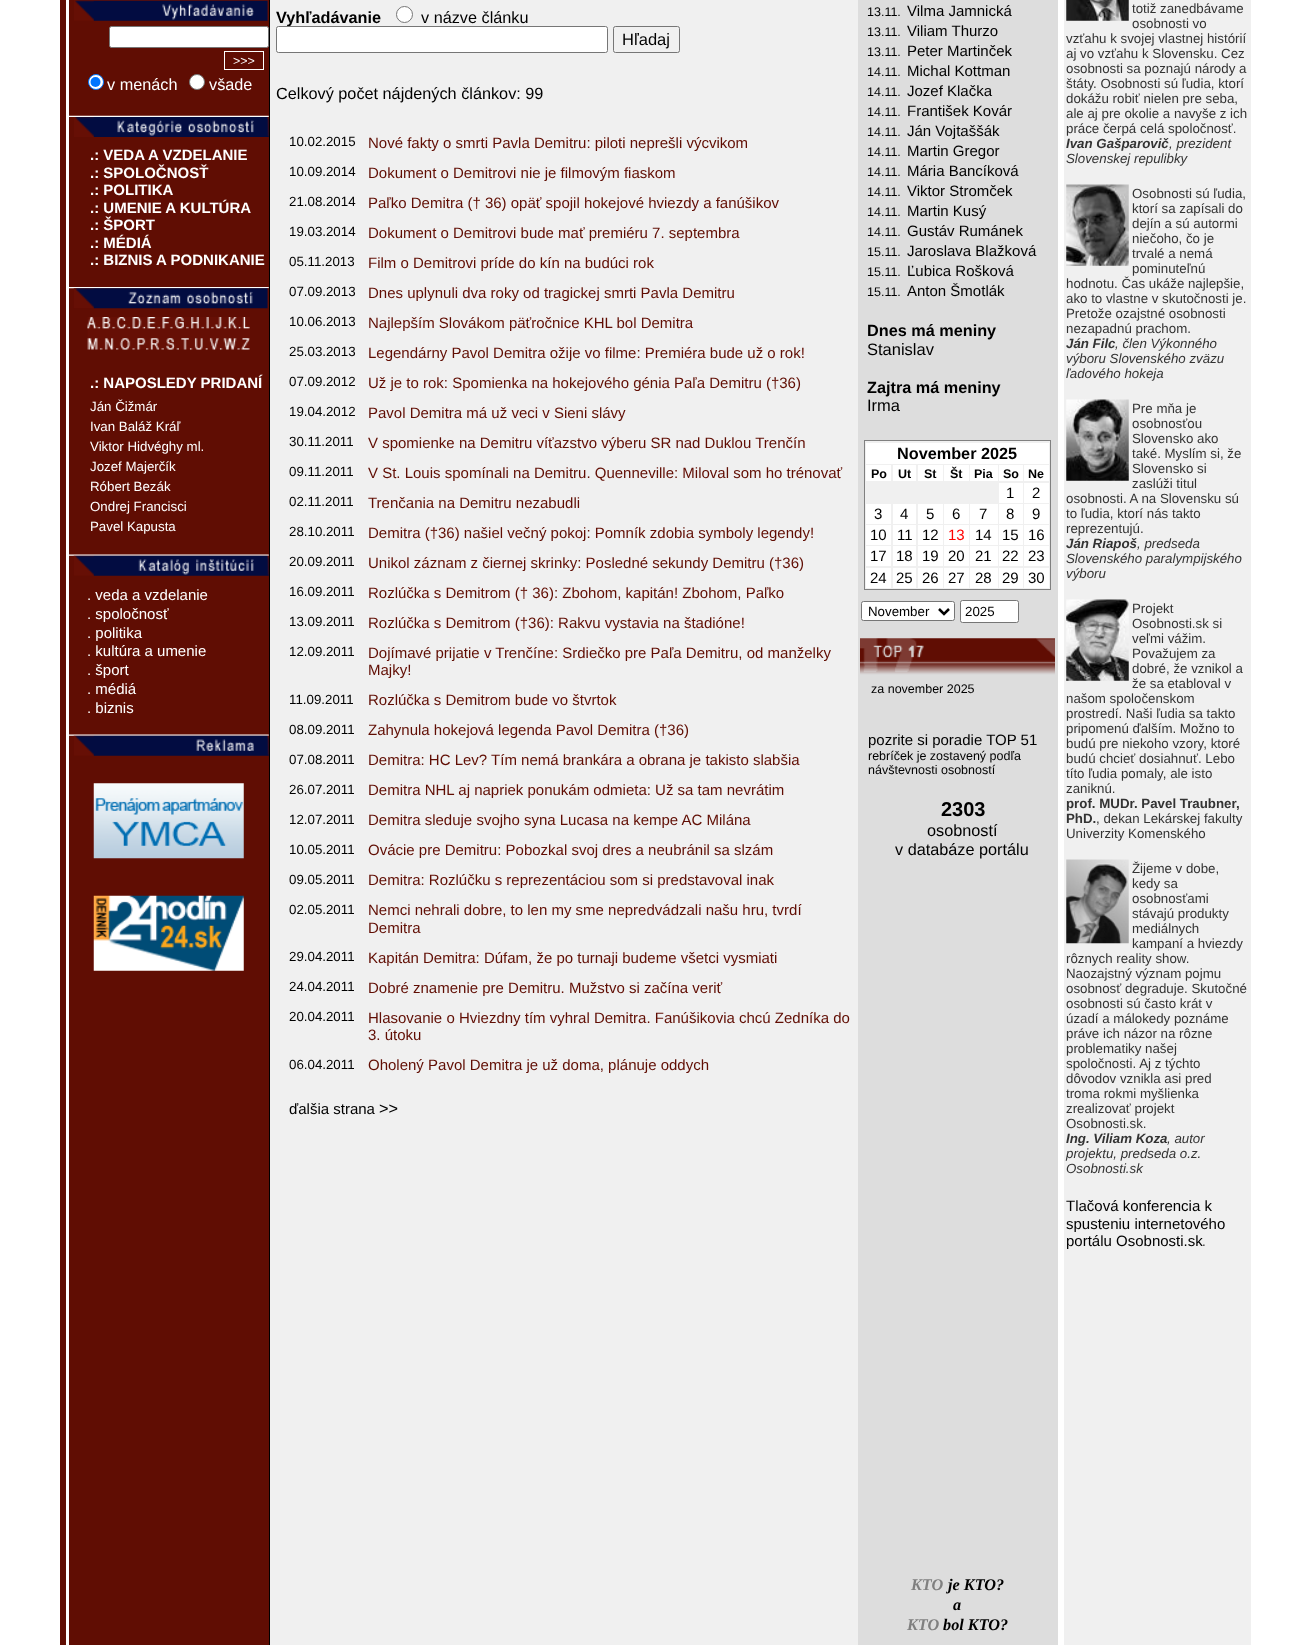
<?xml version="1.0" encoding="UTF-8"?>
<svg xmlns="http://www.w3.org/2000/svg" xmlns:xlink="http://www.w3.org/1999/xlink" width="1316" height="1645">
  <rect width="100%" height="100%" fill="#ffffff" />
  <rect x="69" width="200" height="1645" fill="#600d03" />
  <rect x="269" width="1" height="1645" fill="#000000" />
  <image x="74" y="0" width="194" height="21" xlink:href="image1.png" />
  <rect x="109.5" y="26.5" width="159" height="21" rx="2" fill="#ffffff" stroke="#767676" />
  <rect x="224.5" y="51.5" width="39" height="18" fill="none" stroke="#ffffff" />
  <circle cx="96" cy="82" r="7.5" fill="#ffffff" stroke="#0075ff" />
  <circle cx="95.5" cy="82" r="5" fill="#0075ff" />
  <circle cx="197" cy="82" r="7.5" fill="#ffffff" stroke="#767676" />
  <image x="69" y="115" width="200" height="2" xlink:href="image2.png" />
  <image x="74" y="117" width="195" height="20" xlink:href="image3.png" />
  <image x="69" y="287" width="200" height="2" xlink:href="image4.png" />
  <image x="73" y="288" width="196" height="21" xlink:href="image5.png" />
  <image x="87" y="317" width="163" height="33" xlink:href="image6.png" />
  <image x="69" y="554" width="200" height="2" xlink:href="image7.png" />
  <image x="73" y="555" width="196" height="21" xlink:href="image8.png" />
  <image x="69" y="734" width="200" height="2" xlink:href="image7.png" />
  <image x="73" y="735" width="196" height="21" xlink:href="image9.png" />
  <image x="93" y="783" width="151" height="76" xlink:href="image10.png" />
  <image x="93" y="895" width="151" height="76" xlink:href="image11.png" />
  <rect x="270" width="588" height="1645" fill="#f0f0f0" />
  <circle cx="404.5" cy="14.5" r="8" fill="#ffffff" stroke="#767676" />
  <rect x="613.5" y="26.5" width="66" height="26" rx="2" fill="none" stroke="#767676" />
  <rect x="858" width="200" height="1645" fill="#dddddd" />
  <rect x="864.5" y="440.5" width="186" height="149" fill="#f0f0f0" stroke="#808080" />
  <rect x="866" y="443" width="183" height="21" fill="#ffffff" />
  <rect x="866" y="465" width="25" height="16" fill="#ffffff" />
  <rect x="893" y="465" width="23" height="16" fill="#ffffff" />
  <rect x="918" y="465" width="25" height="16" fill="#ffffff" />
  <rect x="944" y="465" width="25" height="16" fill="#ffffff" />
  <rect x="970" y="465" width="28" height="16" fill="#ffffff" />
  <rect x="999" y="465" width="24" height="16" fill="#ffffff" />
  <rect x="1024" y="465" width="25" height="16" fill="#ffffff" />
  <rect x="999" y="483" width="24" height="20" fill="#ffffff" />
  <rect x="1024" y="483" width="25" height="20" fill="#ffffff" />
  <rect x="866" y="504" width="25" height="20" fill="#ffffff" />
  <rect x="893" y="504" width="23" height="20" fill="#ffffff" />
  <rect x="918" y="504" width="25" height="20" fill="#ffffff" />
  <rect x="944" y="504" width="25" height="20" fill="#ffffff" />
  <rect x="970" y="504" width="28" height="20" fill="#ffffff" />
  <rect x="999" y="504" width="24" height="20" fill="#ffffff" />
  <rect x="1024" y="504" width="25" height="20" fill="#ffffff" />
  <rect x="866" y="525" width="25" height="20" fill="#ffffff" />
  <rect x="893" y="525" width="23" height="20" fill="#ffffff" />
  <rect x="918" y="525" width="25" height="20" fill="#ffffff" />
  <rect x="944" y="525" width="25" height="20" fill="#ffffff" />
  <rect x="970" y="525" width="28" height="20" fill="#ffffff" />
  <rect x="999" y="525" width="24" height="20" fill="#ffffff" />
  <rect x="1024" y="525" width="25" height="20" fill="#ffffff" />
  <rect x="866" y="546" width="25" height="20" fill="#ffffff" />
  <rect x="893" y="546" width="23" height="20" fill="#ffffff" />
  <rect x="918" y="546" width="25" height="20" fill="#ffffff" />
  <rect x="944" y="546" width="25" height="20" fill="#ffffff" />
  <rect x="970" y="546" width="28" height="20" fill="#ffffff" />
  <rect x="999" y="546" width="24" height="20" fill="#ffffff" />
  <rect x="1024" y="546" width="25" height="20" fill="#ffffff" />
  <rect x="866" y="568" width="25" height="20" fill="#ffffff" />
  <rect x="893" y="568" width="23" height="20" fill="#ffffff" />
  <rect x="918" y="568" width="25" height="20" fill="#ffffff" />
  <rect x="944" y="568" width="25" height="20" fill="#ffffff" />
  <rect x="970" y="568" width="28" height="20" fill="#ffffff" />
  <rect x="999" y="568" width="24" height="20" fill="#ffffff" />
  <rect x="1024" y="568" width="25" height="20" fill="#ffffff" />
  <rect x="861.5" y="601.5" width="93" height="19" rx="2" fill="#ffffff" stroke="#767676" />
  <path d="M 939 609 l 5 5 l 5 -5" fill="none" stroke="#000000" stroke-width="2.5" />
  <rect x="960.5" y="600.5" width="58" height="22" rx="2" fill="#ffffff" stroke="#767676" />
  <image x="860" y="638" width="195" height="37" xlink:href="image12.png" />
  <rect x="60" width="6" height="1645" fill="#600d03" />
  <rect x="1064" width="187" height="1645" fill="#f0f0f0" />
  <image x="1066" y="0" width="63" height="21" xlink:href="image13.png" />
  <image x="1066" y="184" width="63" height="82" xlink:href="image14.png" />
  <image x="1066" y="399" width="63" height="82" xlink:href="image15.png" />
  <image x="1066" y="599" width="63" height="82" xlink:href="image16.png" />
  <image x="1066" y="859" width="63" height="85" xlink:href="image17.png" />
  <text x="233" y="65" style="font-family: Liberation Sans; font-size: 12.5px; fill: #ffffff">&gt;&gt;&gt;</text>
  <text x="107" y="90" style="font-family: Liberation Sans; font-size: 16.25px; fill: #ffffff">v menách</text>
  <text x="209" y="90" style="font-family: Liberation Sans; font-size: 16.25px; fill: #ffffff">všade</text>
  <text x="90" y="160" style="font-family: Liberation Sans; font-size: 15px; font-weight: bold; fill: #ffffff">.: VEDA A VZDELANIE</text>
  <text x="90" y="178" style="font-family: Liberation Sans; font-size: 15px; font-weight: bold; fill: #ffffff">.: SPOLOČNOSŤ</text>
  <text x="90" y="195" style="font-family: Liberation Sans; font-size: 15px; font-weight: bold; fill: #ffffff">.: POLITIKA</text>
  <text x="90" y="213" style="font-family: Liberation Sans; font-size: 15px; font-weight: bold; fill: #ffffff">.: UMENIE A KULTÚRA</text>
  <text x="90" y="230" style="font-family: Liberation Sans; font-size: 15px; font-weight: bold; fill: #ffffff">.: ŠPORT</text>
  <text x="90" y="248" style="font-family: Liberation Sans; font-size: 15px; font-weight: bold; fill: #ffffff">.: MÉDIÁ</text>
  <text x="90" y="265" style="font-family: Liberation Sans; font-size: 15px; font-weight: bold; fill: #ffffff">.: BIZNIS A PODNIKANIE</text>
  <text x="90" y="388" style="font-family: Liberation Sans; font-size: 15px; font-weight: bold; fill: #ffffff">.: NAPOSLEDY PRIDANÍ</text>
  <text x="90" y="411" style="font-family: Liberation Sans; font-size: 13.3px; fill: #ffffff">Ján Čižmár</text>
  <text x="90" y="431" style="font-family: Liberation Sans; font-size: 13.3px; fill: #ffffff">Ivan Baláž Kráľ</text>
  <text x="90" y="451" style="font-family: Liberation Sans; font-size: 13.3px; fill: #ffffff">Viktor Hidvéghy ml.</text>
  <text x="90" y="471" style="font-family: Liberation Sans; font-size: 13.3px; fill: #ffffff">Jozef Majerčík</text>
  <text x="90" y="491" style="font-family: Liberation Sans; font-size: 13.3px; fill: #ffffff">Róbert Bezák</text>
  <text x="90" y="511" style="font-family: Liberation Sans; font-size: 13.3px; fill: #ffffff">Ondrej Francisci</text>
  <text x="90" y="531" style="font-family: Liberation Sans; font-size: 13.3px; fill: #ffffff">Pavel Kapusta</text>
  <text x="87" y="600" style="font-family: Liberation Sans; font-size: 15px; fill: #ffffff">. veda a vzdelanie</text>
  <text x="87" y="619" style="font-family: Liberation Sans; font-size: 15px; fill: #ffffff">. spoločnosť</text>
  <text x="87" y="638" style="font-family: Liberation Sans; font-size: 15px; fill: #ffffff">. politika</text>
  <text x="87" y="656" style="font-family: Liberation Sans; font-size: 15px; fill: #ffffff">. kultúra a umenie</text>
  <text x="87" y="675" style="font-family: Liberation Sans; font-size: 15px; fill: #ffffff">. šport</text>
  <text x="87" y="694" style="font-family: Liberation Sans; font-size: 15px; fill: #ffffff">. médiá</text>
  <text x="87" y="713" style="font-family: Liberation Sans; font-size: 15px; fill: #ffffff">. biznis</text>
  <text x="276" y="23" style="font-family: Liberation Sans; font-size: 16.25px; font-weight: bold; fill: #000000">Vyhľadávanie</text>
  <text x="421" y="23" style="font-family: Liberation Sans; font-size: 16.25px; fill: #000000">v názve článku</text>
  <rect x="276.5" y="26.5" width="331" height="26" rx="2" fill="#ffffff" stroke="#767676" />
  <text x="622" y="45" style="font-family: Liberation Sans; font-size: 16.5px; fill: #000000">Hľadaj</text>
  <text x="276" y="99" style="font-family: Liberation Sans; font-size: 16.25px; fill: #000000">Celkový počet nájdených článkov: 99</text>
  <text x="289" y="146" style="font-family: Liberation Sans; font-size: 13.3px; fill: #000000">10.02.2015</text>
  <text x="368" y="148" style="font-family: Liberation Sans; font-size: 15px; fill: #600d03">Nové fakty o smrti Pavla Demitru: piloti neprešli výcvikom</text>
  <text x="289" y="176" style="font-family: Liberation Sans; font-size: 13.3px; fill: #000000">10.09.2014</text>
  <text x="368" y="178" style="font-family: Liberation Sans; font-size: 15px; fill: #600d03">Dokument o Demitrovi nie je filmovým fiaskom</text>
  <text x="289" y="206" style="font-family: Liberation Sans; font-size: 13.3px; fill: #000000">21.08.2014</text>
  <text x="368" y="208" style="font-family: Liberation Sans; font-size: 15px; fill: #600d03">Paľko Demitra († 36) opäť spojil hokejové hviezdy a fanúšikov</text>
  <text x="289" y="236" style="font-family: Liberation Sans; font-size: 13.3px; fill: #000000">19.03.2014</text>
  <text x="368" y="238" style="font-family: Liberation Sans; font-size: 15px; fill: #600d03">Dokument o Demitrovi bude mať premiéru 7. septembra</text>
  <text x="289" y="266" style="font-family: Liberation Sans; font-size: 13.3px; fill: #000000">05.11.2013</text>
  <text x="368" y="268" style="font-family: Liberation Sans; font-size: 15px; fill: #600d03">Film o Demitrovi príde do kín na budúci rok</text>
  <text x="289" y="296" style="font-family: Liberation Sans; font-size: 13.3px; fill: #000000">07.09.2013</text>
  <text x="368" y="298" style="font-family: Liberation Sans; font-size: 15px; fill: #600d03">Dnes uplynuli dva roky od tragickej smrti Pavla Demitru</text>
  <text x="289" y="326" style="font-family: Liberation Sans; font-size: 13.3px; fill: #000000">10.06.2013</text>
  <text x="368" y="328" style="font-family: Liberation Sans; font-size: 15px; fill: #600d03">Najlepším Slovákom päťročnice KHL bol Demitra</text>
  <text x="289" y="356" style="font-family: Liberation Sans; font-size: 13.3px; fill: #000000">25.03.2013</text>
  <text x="368" y="358" style="font-family: Liberation Sans; font-size: 15px; fill: #600d03">Legendárny Pavol Demitra ožije vo filme: Premiéra bude už o rok!</text>
  <text x="289" y="386" style="font-family: Liberation Sans; font-size: 13.3px; fill: #000000">07.09.2012</text>
  <text x="368" y="388" style="font-family: Liberation Sans; font-size: 15px; fill: #600d03">Už je to rok: Spomienka na hokejového génia Paľa Demitru (†36)</text>
  <text x="289" y="416" style="font-family: Liberation Sans; font-size: 13.3px; fill: #000000">19.04.2012</text>
  <text x="368" y="418" style="font-family: Liberation Sans; font-size: 15px; fill: #600d03">Pavol Demitra má už veci v Sieni slávy</text>
  <text x="289" y="446" style="font-family: Liberation Sans; font-size: 13.3px; fill: #000000">30.11.2011</text>
  <text x="368" y="448" style="font-family: Liberation Sans; font-size: 15px; fill: #600d03">V spomienke na Demitru víťazstvo výberu SR nad Duklou Trenčín</text>
  <text x="289" y="476" style="font-family: Liberation Sans; font-size: 13.3px; fill: #000000">09.11.2011</text>
  <text x="368" y="478" style="font-family: Liberation Sans; font-size: 15px; fill: #600d03">V St. Louis spomínali na Demitru. Quenneville: Miloval som ho trénovať</text>
  <text x="289" y="506" style="font-family: Liberation Sans; font-size: 13.3px; fill: #000000">02.11.2011</text>
  <text x="368" y="508" style="font-family: Liberation Sans; font-size: 15px; fill: #600d03">Trenčania na Demitru nezabudli</text>
  <text x="289" y="536" style="font-family: Liberation Sans; font-size: 13.3px; fill: #000000">28.10.2011</text>
  <text x="368" y="538" style="font-family: Liberation Sans; font-size: 15px; fill: #600d03">Demitra (†36) našiel večný pokoj: Pomník zdobia symboly legendy!</text>
  <text x="289" y="566" style="font-family: Liberation Sans; font-size: 13.3px; fill: #000000">20.09.2011</text>
  <text x="368" y="568" style="font-family: Liberation Sans; font-size: 15px; fill: #600d03">Unikol záznam z čiernej skrinky: Posledné sekundy Demitru (†36)</text>
  <text x="289" y="596" style="font-family: Liberation Sans; font-size: 13.3px; fill: #000000">16.09.2011</text>
  <text x="368" y="598" style="font-family: Liberation Sans; font-size: 15px; fill: #600d03">Rozlúčka s Demitrom († 36): Zbohom, kapitán! Zbohom, Paľko</text>
  <text x="289" y="626" style="font-family: Liberation Sans; font-size: 13.3px; fill: #000000">13.09.2011</text>
  <text x="368" y="628" style="font-family: Liberation Sans; font-size: 15px; fill: #600d03">Rozlúčka s Demitrom (†36): Rakvu vystavia na štadióne!</text>
  <text x="289" y="656" style="font-family: Liberation Sans; font-size: 13.3px; fill: #000000">12.09.2011</text>
  <text x="368" y="658" style="font-family: Liberation Sans; font-size: 15px; fill: #600d03">Dojímavé prijatie v Trenčíne: Srdiečko pre Paľa Demitru, od manželky</text>
  <text x="368" y="675" style="font-family: Liberation Sans; font-size: 15px; fill: #600d03">Majky!</text>
  <text x="289" y="704" style="font-family: Liberation Sans; font-size: 13.3px; fill: #000000">11.09.2011</text>
  <text x="368" y="705" style="font-family: Liberation Sans; font-size: 15px; fill: #600d03">Rozlúčka s Demitrom bude vo štvrtok</text>
  <text x="289" y="734" style="font-family: Liberation Sans; font-size: 13.3px; fill: #000000">08.09.2011</text>
  <text x="368" y="735" style="font-family: Liberation Sans; font-size: 15px; fill: #600d03">Zahynula hokejová legenda Pavol Demitra (†36)</text>
  <text x="289" y="764" style="font-family: Liberation Sans; font-size: 13.3px; fill: #000000">07.08.2011</text>
  <text x="368" y="765" style="font-family: Liberation Sans; font-size: 15px; fill: #600d03">Demitra: HC Lev? Tím nemá brankára a obrana je takisto slabšia</text>
  <text x="289" y="794" style="font-family: Liberation Sans; font-size: 13.3px; fill: #000000">26.07.2011</text>
  <text x="368" y="795" style="font-family: Liberation Sans; font-size: 15px; fill: #600d03">Demitra NHL aj napriek ponukám odmieta: Už sa tam nevrátim</text>
  <text x="289" y="824" style="font-family: Liberation Sans; font-size: 13.3px; fill: #000000">12.07.2011</text>
  <text x="368" y="825" style="font-family: Liberation Sans; font-size: 15px; fill: #600d03">Demitra sleduje svojho syna Lucasa na kempe AC Milána</text>
  <text x="289" y="854" style="font-family: Liberation Sans; font-size: 13.3px; fill: #000000">10.05.2011</text>
  <text x="368" y="855" style="font-family: Liberation Sans; font-size: 15px; fill: #600d03">Ovácie pre Demitru: Pobozkal svoj dres a neubránil sa slzám</text>
  <text x="289" y="884" style="font-family: Liberation Sans; font-size: 13.3px; fill: #000000">09.05.2011</text>
  <text x="368" y="885" style="font-family: Liberation Sans; font-size: 15px; fill: #600d03">Demitra: Rozlúčku s reprezentáciou som si predstavoval inak</text>
  <text x="289" y="914" style="font-family: Liberation Sans; font-size: 13.3px; fill: #000000">02.05.2011</text>
  <text x="368" y="915" style="font-family: Liberation Sans; font-size: 15px; fill: #600d03">Nemci nehrali dobre, to len my sme nepredvádzali našu hru, tvrdí</text>
  <text x="368" y="933" style="font-family: Liberation Sans; font-size: 15px; fill: #600d03">Demitra</text>
  <text x="289" y="961" style="font-family: Liberation Sans; font-size: 13.3px; fill: #000000">29.04.2011</text>
  <text x="368" y="963" style="font-family: Liberation Sans; font-size: 15px; fill: #600d03">Kapitán Demitra: Dúfam, že po turnaji budeme všetci vysmiati</text>
  <text x="289" y="991" style="font-family: Liberation Sans; font-size: 13.3px; fill: #000000">24.04.2011</text>
  <text x="368" y="993" style="font-family: Liberation Sans; font-size: 15px; fill: #600d03">Dobré znamenie pre Demitru. Mužstvo si začína veriť</text>
  <text x="289" y="1021" style="font-family: Liberation Sans; font-size: 13.3px; fill: #000000">20.04.2011</text>
  <text x="368" y="1023" style="font-family: Liberation Sans; font-size: 15px; fill: #600d03">Hlasovanie o Hviezdny tím vyhral Demitra. Fanúšikovia chcú Zedníka do</text>
  <text x="368" y="1040" style="font-family: Liberation Sans; font-size: 15px; fill: #600d03">3. útoku</text>
  <text x="289" y="1069" style="font-family: Liberation Sans; font-size: 13.3px; fill: #000000">06.04.2011</text>
  <text x="368" y="1070" style="font-family: Liberation Sans; font-size: 15px; fill: #600d03">Oholený Pavol Demitra je už doma, plánuje oddych</text>
  <text x="289" y="1114" style="font-family: Liberation Sans; font-size: 15px; fill: #000000">ďalšia strana</text>
  <text x="379" y="1114" style="font-family: Liberation Sans; font-size: 16.25px; fill: #000000">&gt;&gt;</text>
  <text x="867" y="16" style="font-family: Liberation Sans; font-size: 12.5px; fill: #000000">13.11.</text>
  <text x="907" y="16" style="font-family: Liberation Sans; font-size: 15px; fill: #000000">Vilma Jamnická</text>
  <text x="867" y="36" style="font-family: Liberation Sans; font-size: 12.5px; fill: #000000">13.11.</text>
  <text x="907" y="36" style="font-family: Liberation Sans; font-size: 15px; fill: #000000">Viliam Thurzo</text>
  <text x="867" y="56" style="font-family: Liberation Sans; font-size: 12.5px; fill: #000000">13.11.</text>
  <text x="907" y="56" style="font-family: Liberation Sans; font-size: 15px; fill: #000000">Peter Martinček</text>
  <text x="867" y="76" style="font-family: Liberation Sans; font-size: 12.5px; fill: #000000">14.11.</text>
  <text x="907" y="76" style="font-family: Liberation Sans; font-size: 15px; fill: #000000">Michal Kottman</text>
  <text x="867" y="96" style="font-family: Liberation Sans; font-size: 12.5px; fill: #000000">14.11.</text>
  <text x="907" y="96" style="font-family: Liberation Sans; font-size: 15px; fill: #000000">Jozef Klačka</text>
  <text x="867" y="116" style="font-family: Liberation Sans; font-size: 12.5px; fill: #000000">14.11.</text>
  <text x="907" y="116" style="font-family: Liberation Sans; font-size: 15px; fill: #000000">František Kovár</text>
  <text x="867" y="136" style="font-family: Liberation Sans; font-size: 12.5px; fill: #000000">14.11.</text>
  <text x="907" y="136" style="font-family: Liberation Sans; font-size: 15px; fill: #000000">Ján Vojtaššák</text>
  <text x="867" y="156" style="font-family: Liberation Sans; font-size: 12.5px; fill: #000000">14.11.</text>
  <text x="907" y="156" style="font-family: Liberation Sans; font-size: 15px; fill: #000000">Martin Gregor</text>
  <text x="867" y="176" style="font-family: Liberation Sans; font-size: 12.5px; fill: #000000">14.11.</text>
  <text x="907" y="176" style="font-family: Liberation Sans; font-size: 15px; fill: #000000">Mária Bancíková</text>
  <text x="867" y="196" style="font-family: Liberation Sans; font-size: 12.5px; fill: #000000">14.11.</text>
  <text x="907" y="196" style="font-family: Liberation Sans; font-size: 15px; fill: #000000">Viktor Stromček</text>
  <text x="867" y="216" style="font-family: Liberation Sans; font-size: 12.5px; fill: #000000">14.11.</text>
  <text x="907" y="216" style="font-family: Liberation Sans; font-size: 15px; fill: #000000">Martin Kusý</text>
  <text x="867" y="236" style="font-family: Liberation Sans; font-size: 12.5px; fill: #000000">14.11.</text>
  <text x="907" y="236" style="font-family: Liberation Sans; font-size: 15px; fill: #000000">Gustáv Rumánek</text>
  <text x="867" y="256" style="font-family: Liberation Sans; font-size: 12.5px; fill: #000000">15.11.</text>
  <text x="907" y="256" style="font-family: Liberation Sans; font-size: 15px; fill: #000000">Jaroslava Blažková</text>
  <text x="867" y="276" style="font-family: Liberation Sans; font-size: 12.5px; fill: #000000">15.11.</text>
  <text x="907" y="276" style="font-family: Liberation Sans; font-size: 15px; fill: #000000">Ľubica Rošková</text>
  <text x="867" y="296" style="font-family: Liberation Sans; font-size: 12.5px; fill: #000000">15.11.</text>
  <text x="907" y="296" style="font-family: Liberation Sans; font-size: 15px; fill: #000000">Anton Šmotlák</text>
  <text x="867" y="336" style="font-family: Liberation Sans; font-size: 16.25px; font-weight: bold; fill: #000000">Dnes má meniny</text>
  <text x="867" y="355" style="font-family: Liberation Sans; font-size: 16.5px; fill: #000000">Stanislav</text>
  <text x="867" y="393" style="font-family: Liberation Sans; font-size: 16.25px; font-weight: bold; fill: #000000">Zajtra má meniny</text>
  <text x="867" y="411" style="font-family: Liberation Sans; font-size: 16.5px; fill: #000000">Irma</text>
  <text x="897" y="459" style="font-family: Liberation Sans; font-size: 16.25px; font-weight: bold; fill: #000000">November 2025</text>
  <text x="871" y="478" style="font-family: Liberation Sans; font-size: 12.5px; font-weight: bold; fill: #000000">Po</text>
  <text x="898" y="478" style="font-family: Liberation Sans; font-size: 12.5px; font-weight: bold; fill: #000000">Ut</text>
  <text x="924" y="478" style="font-family: Liberation Sans; font-size: 12.5px; font-weight: bold; fill: #000000">St</text>
  <text x="950" y="478" style="font-family: Liberation Sans; font-size: 12.5px; font-weight: bold; fill: #000000">Št</text>
  <text x="974" y="478" style="font-family: Liberation Sans; font-size: 12.5px; font-weight: bold; fill: #000000">Pia</text>
  <text x="1003" y="478" style="font-family: Liberation Sans; font-size: 12.5px; font-weight: bold; fill: #000000">So</text>
  <text x="1028" y="478" style="font-family: Liberation Sans; font-size: 12.5px; font-weight: bold; fill: #000000">Ne</text>
  <text x="1006" y="498" style="font-family: Liberation Sans; font-size: 15px; fill: #000000">1</text>
  <text x="1032" y="498" style="font-family: Liberation Sans; font-size: 15px; fill: #000000">2</text>
  <text x="874" y="519" style="font-family: Liberation Sans; font-size: 15px; fill: #000000">3</text>
  <text x="900" y="519" style="font-family: Liberation Sans; font-size: 15px; fill: #000000">4</text>
  <text x="926" y="519" style="font-family: Liberation Sans; font-size: 15px; fill: #000000">5</text>
  <text x="952" y="519" style="font-family: Liberation Sans; font-size: 15px; fill: #000000">6</text>
  <text x="979" y="519" style="font-family: Liberation Sans; font-size: 15px; fill: #000000">7</text>
  <text x="1006" y="519" style="font-family: Liberation Sans; font-size: 15px; fill: #000000">8</text>
  <text x="1032" y="519" style="font-family: Liberation Sans; font-size: 15px; fill: #000000">9</text>
  <text x="870" y="540" style="font-family: Liberation Sans; font-size: 15px; fill: #000000">10</text>
  <text x="897" y="540" style="font-family: Liberation Sans; font-size: 15px; fill: #000000">11</text>
  <text x="922" y="540" style="font-family: Liberation Sans; font-size: 15px; fill: #000000">12</text>
  <text x="948" y="540" style="font-family: Liberation Sans; font-size: 15px; fill: #ff0000">13</text>
  <text x="975" y="540" style="font-family: Liberation Sans; font-size: 15px; fill: #000000">14</text>
  <text x="1002" y="540" style="font-family: Liberation Sans; font-size: 15px; fill: #000000">15</text>
  <text x="1028" y="540" style="font-family: Liberation Sans; font-size: 15px; fill: #000000">16</text>
  <text x="870" y="561" style="font-family: Liberation Sans; font-size: 15px; fill: #000000">17</text>
  <text x="896" y="561" style="font-family: Liberation Sans; font-size: 15px; fill: #000000">18</text>
  <text x="922" y="561" style="font-family: Liberation Sans; font-size: 15px; fill: #000000">19</text>
  <text x="948" y="561" style="font-family: Liberation Sans; font-size: 15px; fill: #000000">20</text>
  <text x="975" y="561" style="font-family: Liberation Sans; font-size: 15px; fill: #000000">21</text>
  <text x="1002" y="561" style="font-family: Liberation Sans; font-size: 15px; fill: #000000">22</text>
  <text x="1028" y="561" style="font-family: Liberation Sans; font-size: 15px; fill: #000000">23</text>
  <text x="870" y="583" style="font-family: Liberation Sans; font-size: 15px; fill: #000000">24</text>
  <text x="896" y="583" style="font-family: Liberation Sans; font-size: 15px; fill: #000000">25</text>
  <text x="922" y="583" style="font-family: Liberation Sans; font-size: 15px; fill: #000000">26</text>
  <text x="948" y="583" style="font-family: Liberation Sans; font-size: 15px; fill: #000000">27</text>
  <text x="975" y="583" style="font-family: Liberation Sans; font-size: 15px; fill: #000000">28</text>
  <text x="1002" y="583" style="font-family: Liberation Sans; font-size: 15px; fill: #000000">29</text>
  <text x="1028" y="583" style="font-family: Liberation Sans; font-size: 15px; fill: #000000">30</text>
  <text x="868" y="616" style="font-family: Liberation Sans; font-size: 13.3px; fill: #000000">November</text>
  <text x="965" y="616" style="font-family: Liberation Sans; font-size: 13.3px; fill: #000000">2025</text>
  <text x="871" y="693" style="font-family: Liberation Sans; font-size: 12.5px; fill: #000000">za november 2025</text>
  <text x="868" y="745" style="font-family: Liberation Sans; font-size: 15px; fill: #000000">pozrite si poradie TOP 51</text>
  <text x="868" y="760" style="font-family: Liberation Sans; font-size: 12.5px; fill: #000000">rebríček je zostavený podľa</text>
  <text x="868" y="774" style="font-family: Liberation Sans; font-size: 12.5px; fill: #000000">návštevnosti osobností</text>
  <text x="941" y="816" style="font-family: Liberation Sans; font-size: 20px; font-weight: bold; fill: #000000">2303</text>
  <text x="927" y="836" style="font-family: Liberation Sans; font-size: 16.25px; fill: #000000">osobností</text>
  <text x="895" y="855" style="font-family: Liberation Sans; font-size: 16.25px; fill: #000000">v databáze portálu</text>
  <text x="911" y="1590" style="font-family: Liberation Serif; font-size: 16.25px; font-weight: bold; font-style: italic; fill: #808080">KTO</text>
  <text x="948" y="1590" style="font-family: Liberation Serif; font-size: 16.25px; font-weight: bold; font-style: italic; fill: #000000">je KTO?</text>
  <text x="953" y="1610" style="font-family: Liberation Serif; font-size: 16.25px; font-weight: bold; font-style: italic; fill: #000000">a</text>
  <text x="907" y="1630" style="font-family: Liberation Serif; font-size: 16.25px; font-weight: bold; font-style: italic; fill: #808080">KTO</text>
  <text x="943" y="1630" style="font-family: Liberation Serif; font-size: 16.25px; font-weight: bold; font-style: italic; fill: #000000">bol KTO?</text>
  <text x="1132" y="13" style="font-family: Liberation Sans; font-size: 13.3px; fill: #333333">totiž zanedbávame</text>
  <text x="1132" y="28" style="font-family: Liberation Sans; font-size: 13.3px; fill: #333333">osobnosti vo</text>
  <text x="1066" y="43" style="font-family: Liberation Sans; font-size: 13.3px; fill: #333333">vzťahu k svojej vlastnej histórií</text>
  <text x="1066" y="58" style="font-family: Liberation Sans; font-size: 13.3px; fill: #333333">aj vo vzťahu k Slovensku. Cez</text>
  <text x="1066" y="73" style="font-family: Liberation Sans; font-size: 13.3px; fill: #333333">osobnosti sa poznajú národy a</text>
  <text x="1066" y="88" style="font-family: Liberation Sans; font-size: 13.3px; fill: #333333">štáty. Osobnosti sú ľudia, ktorí</text>
  <text x="1066" y="103" style="font-family: Liberation Sans; font-size: 13.3px; fill: #333333">dokážu robiť nielen pre seba,</text>
  <text x="1066" y="118" style="font-family: Liberation Sans; font-size: 13.3px; fill: #333333">ale aj pre okolie a navyše z ich</text>
  <text x="1066" y="133" style="font-family: Liberation Sans; font-size: 13.3px; fill: #333333">práce čerpá celá spoločnosť.</text>
  <text x="1066" y="148" style="font-family: Liberation Sans; font-size: 13.3px; font-weight: bold; font-style: italic; fill: #333333">Ivan Gašparovič</text>
  <text x="1169" y="148" style="font-family: Liberation Sans; font-size: 13.3px; font-style: italic; fill: #333333">, prezident</text>
  <text x="1066" y="163" style="font-family: Liberation Sans; font-size: 13.3px; font-style: italic; fill: #333333">Slovenskej repulibky</text>
  <text x="1132" y="198" style="font-family: Liberation Sans; font-size: 13.3px; fill: #333333">Osobnosti sú ľudia,</text>
  <text x="1132" y="213" style="font-family: Liberation Sans; font-size: 13.3px; fill: #333333">ktorí sa zapísali do</text>
  <text x="1132" y="228" style="font-family: Liberation Sans; font-size: 13.3px; fill: #333333">dejín a sú autormi</text>
  <text x="1132" y="243" style="font-family: Liberation Sans; font-size: 13.3px; fill: #333333">niečoho, čo je</text>
  <text x="1132" y="258" style="font-family: Liberation Sans; font-size: 13.3px; fill: #333333">trvalé a nemá</text>
  <text x="1132" y="273" style="font-family: Liberation Sans; font-size: 13.3px; fill: #333333">pominuteľnú</text>
  <text x="1066" y="288" style="font-family: Liberation Sans; font-size: 13.3px; fill: #333333">hodnotu. Čas ukáže najlepšie,</text>
  <text x="1066" y="303" style="font-family: Liberation Sans; font-size: 13.3px; fill: #333333">ako to vlastne v skutočnosti je.</text>
  <text x="1066" y="318" style="font-family: Liberation Sans; font-size: 13.3px; fill: #333333">Pretože ozajstné osobnosti</text>
  <text x="1066" y="333" style="font-family: Liberation Sans; font-size: 13.3px; fill: #333333">nezapadnú prachom.</text>
  <text x="1066" y="348" style="font-family: Liberation Sans; font-size: 13.3px; font-weight: bold; font-style: italic; fill: #333333">Ján Filc</text>
  <text x="1115" y="348" style="font-family: Liberation Sans; font-size: 13.3px; font-style: italic; fill: #333333">, člen Výkonného</text>
  <text x="1066" y="363" style="font-family: Liberation Sans; font-size: 13.3px; font-style: italic; fill: #333333">výboru Slovenského zväzu</text>
  <text x="1066" y="378" style="font-family: Liberation Sans; font-size: 13.3px; font-style: italic; fill: #333333">ľadového hokeja</text>
  <text x="1132" y="413" style="font-family: Liberation Sans; font-size: 13.3px; fill: #333333">Pre mňa je</text>
  <text x="1132" y="428" style="font-family: Liberation Sans; font-size: 13.3px; fill: #333333">osobnosťou</text>
  <text x="1132" y="443" style="font-family: Liberation Sans; font-size: 13.3px; fill: #333333">Slovensko ako</text>
  <text x="1132" y="458" style="font-family: Liberation Sans; font-size: 13.3px; fill: #333333">také. Myslím si, že</text>
  <text x="1132" y="473" style="font-family: Liberation Sans; font-size: 13.3px; fill: #333333">Slovensko si</text>
  <text x="1132" y="488" style="font-family: Liberation Sans; font-size: 13.3px; fill: #333333">zaslúži titul</text>
  <text x="1066" y="503" style="font-family: Liberation Sans; font-size: 13.3px; fill: #333333">osobnosti. A na Slovensku sú</text>
  <text x="1066" y="518" style="font-family: Liberation Sans; font-size: 13.3px; fill: #333333">to ľudia, ktorí nás takto</text>
  <text x="1066" y="533" style="font-family: Liberation Sans; font-size: 13.3px; fill: #333333">reprezentujú.</text>
  <text x="1066" y="548" style="font-family: Liberation Sans; font-size: 13.3px; font-weight: bold; font-style: italic; fill: #333333">Ján Riapoš</text>
  <text x="1137" y="548" style="font-family: Liberation Sans; font-size: 13.3px; font-style: italic; fill: #333333">, predseda</text>
  <text x="1066" y="563" style="font-family: Liberation Sans; font-size: 13.3px; font-style: italic; fill: #333333">Slovenského paralympijského</text>
  <text x="1066" y="578" style="font-family: Liberation Sans; font-size: 13.3px; font-style: italic; fill: #333333">výboru</text>
  <text x="1132" y="613" style="font-family: Liberation Sans; font-size: 13.3px; fill: #333333">Projekt</text>
  <text x="1132" y="628" style="font-family: Liberation Sans; font-size: 13.3px; fill: #333333">Osobnosti.sk si</text>
  <text x="1132" y="643" style="font-family: Liberation Sans; font-size: 13.3px; fill: #333333">veľmi vážim.</text>
  <text x="1132" y="658" style="font-family: Liberation Sans; font-size: 13.3px; fill: #333333">Považujem za</text>
  <text x="1132" y="673" style="font-family: Liberation Sans; font-size: 13.3px; fill: #333333">dobré, že vznikol a</text>
  <text x="1132" y="688" style="font-family: Liberation Sans; font-size: 13.3px; fill: #333333">že sa etabloval v</text>
  <text x="1066" y="703" style="font-family: Liberation Sans; font-size: 13.3px; fill: #333333">našom spoločenskom</text>
  <text x="1066" y="718" style="font-family: Liberation Sans; font-size: 13.3px; fill: #333333">prostredí. Naši ľudia sa takto</text>
  <text x="1066" y="733" style="font-family: Liberation Sans; font-size: 13.3px; fill: #333333">pripomenú ďalším. Možno to</text>
  <text x="1066" y="748" style="font-family: Liberation Sans; font-size: 13.3px; fill: #333333">budú pre niekoho vzory, ktoré</text>
  <text x="1066" y="763" style="font-family: Liberation Sans; font-size: 13.3px; fill: #333333">budú chcieť dosiahnuť. Lebo</text>
  <text x="1066" y="778" style="font-family: Liberation Sans; font-size: 13.3px; fill: #333333">títo ľudia pomaly, ale isto</text>
  <text x="1066" y="793" style="font-family: Liberation Sans; font-size: 13.3px; fill: #333333">zaniknú.</text>
  <text x="1066" y="808" style="font-family: Liberation Sans; font-size: 13.3px; font-weight: bold; fill: #333333">prof. MUDr. Pavel Traubner,</text>
  <text x="1066" y="823" style="font-family: Liberation Sans; font-size: 13.3px; font-weight: bold; fill: #333333">PhD.</text>
  <text x="1096" y="823" style="font-family: Liberation Sans; font-size: 13.3px; fill: #333333">, dekan Lekárskej fakulty</text>
  <text x="1066" y="838" style="font-family: Liberation Sans; font-size: 13.3px; fill: #333333">Univerzity Komenského</text>
  <text x="1132" y="873" style="font-family: Liberation Sans; font-size: 13.3px; fill: #333333">Žijeme v dobe,</text>
  <text x="1132" y="888" style="font-family: Liberation Sans; font-size: 13.3px; fill: #333333">kedy sa</text>
  <text x="1132" y="903" style="font-family: Liberation Sans; font-size: 13.3px; fill: #333333">osobnosťami</text>
  <text x="1132" y="918" style="font-family: Liberation Sans; font-size: 13.3px; fill: #333333">stávajú produkty</text>
  <text x="1132" y="933" style="font-family: Liberation Sans; font-size: 13.3px; fill: #333333">mediálnych</text>
  <text x="1132" y="948" style="font-family: Liberation Sans; font-size: 13.3px; fill: #333333">kampaní a hviezdy</text>
  <text x="1066" y="963" style="font-family: Liberation Sans; font-size: 13.3px; fill: #333333">rôznych reality show.</text>
  <text x="1066" y="978" style="font-family: Liberation Sans; font-size: 13.3px; fill: #333333">Naozajstný význam pojmu</text>
  <text x="1066" y="993" style="font-family: Liberation Sans; font-size: 13.3px; fill: #333333">osobnosť degraduje. Skutočné</text>
  <text x="1066" y="1008" style="font-family: Liberation Sans; font-size: 13.3px; fill: #333333">osobnosti sú často krát v</text>
  <text x="1066" y="1023" style="font-family: Liberation Sans; font-size: 13.3px; fill: #333333">úzadí a málokedy poznáme</text>
  <text x="1066" y="1038" style="font-family: Liberation Sans; font-size: 13.3px; fill: #333333">práve ich názor na rôzne</text>
  <text x="1066" y="1053" style="font-family: Liberation Sans; font-size: 13.3px; fill: #333333">problematiky našej</text>
  <text x="1066" y="1068" style="font-family: Liberation Sans; font-size: 13.3px; fill: #333333">spoločnosti. Aj z týchto</text>
  <text x="1066" y="1083" style="font-family: Liberation Sans; font-size: 13.3px; fill: #333333">dôvodov vznikla asi pred</text>
  <text x="1066" y="1098" style="font-family: Liberation Sans; font-size: 13.3px; fill: #333333">troma rokmi myšlienka</text>
  <text x="1066" y="1113" style="font-family: Liberation Sans; font-size: 13.3px; fill: #333333">zrealizovať projekt</text>
  <text x="1066" y="1128" style="font-family: Liberation Sans; font-size: 13.3px; fill: #333333">Osobnosti.sk.</text>
  <text x="1066" y="1143" style="font-family: Liberation Sans; font-size: 13.3px; font-weight: bold; font-style: italic; fill: #333333">Ing. Viliam Koza</text>
  <text x="1167" y="1143" style="font-family: Liberation Sans; font-size: 13.3px; font-style: italic; fill: #333333">, autor</text>
  <text x="1066" y="1158" style="font-family: Liberation Sans; font-size: 13.3px; font-style: italic; fill: #333333">projektu, predseda o.z.</text>
  <text x="1066" y="1173" style="font-family: Liberation Sans; font-size: 13.3px; font-style: italic; fill: #333333">Osobnosti.sk</text>
  <text x="1066" y="1211" style="font-family: Liberation Sans; font-size: 15px; fill: #000000">Tlačová konferencia k</text>
  <text x="1066" y="1229" style="font-family: Liberation Sans; font-size: 15px; fill: #000000">spusteniu internetového</text>
  <text x="1066" y="1246" style="font-family: Liberation Sans; font-size: 15px; fill: #000000">portálu Osobnosti.sk</text>
  <text x="1202" y="1246" style="font-family: Liberation Sans; font-size: 13.3px; fill: #333333">.</text>
</svg>
